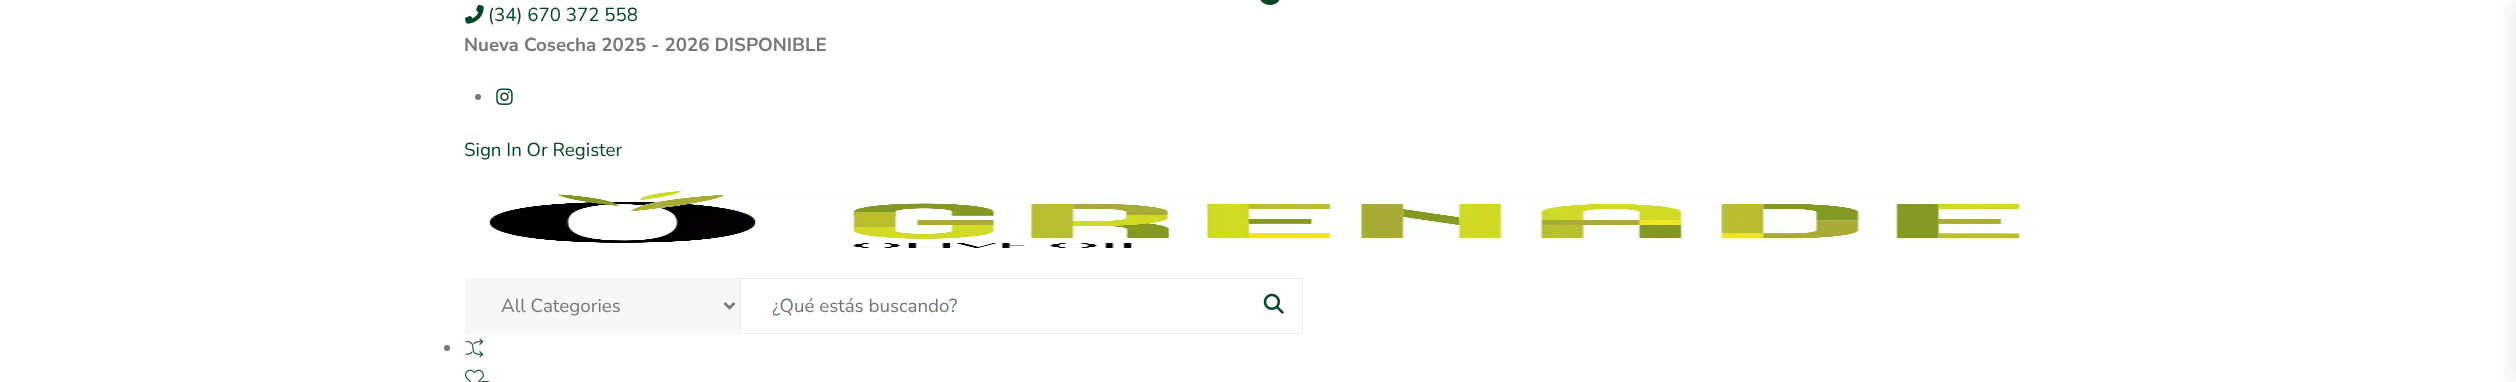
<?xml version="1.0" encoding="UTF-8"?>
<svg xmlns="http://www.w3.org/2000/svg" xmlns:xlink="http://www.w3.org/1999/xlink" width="2516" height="382">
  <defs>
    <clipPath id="clip1"><rect x="773" y="294" width="466" height="25" /></clipPath>
  </defs>
  <rect width="100%" height="100%" fill="#ffffff" />
  <image x="465" y="4" width="19" height="20" xlink:href="image1.png" />
  <circle cx="478" cy="97" r="3" fill="#777777" />
  <image x="496" y="88" width="17" height="17" xlink:href="image2.png" />
  <circle cx="447" cy="348" r="3" fill="#777777" />
  <image x="465" y="338" width="19" height="20" xlink:href="image3.png" />
  <rect x="1260" y="-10" width="20" height="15" rx="10" fill="#074625" />
  <image x="465" y="369" width="19" height="13" xlink:href="image4.png" />
  <rect x="475" y="381" width="20" height="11" rx="10" fill="#074625" />
  <image x="488" y="191" width="1537" height="57" xlink:href="image5.png" />
  <rect x="465" y="278" width="275" height="56" fill="#f6f7f6" />
  <path d="M 724.5 303 l 5 5 l 5 -5" fill="none" stroke="#777777" stroke-width="2.5" />
  <rect x="740.5" y="278.5" width="562" height="55" fill="none" stroke="#ededed" />
  <image x="1263" y="293" width="21" height="21" xlink:href="image6.png" />
  <rect x="2513" width="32" height="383" fill="#000000" fill-opacity="0.1" filter="blur(9.5px)" />
  <text x="488" y="21" style="font-family: Nunito Sans; font-size: 18.75px; fill: #074625">(34) 670 372 558</text>
  <text x="464" y="51" style="font-family: Nunito Sans; font-size: 18.75px; font-weight: bold; fill: #777777">Nueva Cosecha 2025 - 2026 DISPONIBLE</text>
  <text x="464" y="156" style="font-family: Nunito Sans; font-size: 18.75px; fill: #074625">Sign In Or Register</text>
  <text x="501" y="312" style="font-family: Nunito Sans; font-size: 18.75px; fill: #777777">All Categories</text>
  <g clip-path="url(#clip1)">
    <text x="772" y="312" style="font-family: Nunito Sans; font-size: 18.75px; fill: #6c757d">¿Qué estás buscando?</text>
  </g>
</svg>
